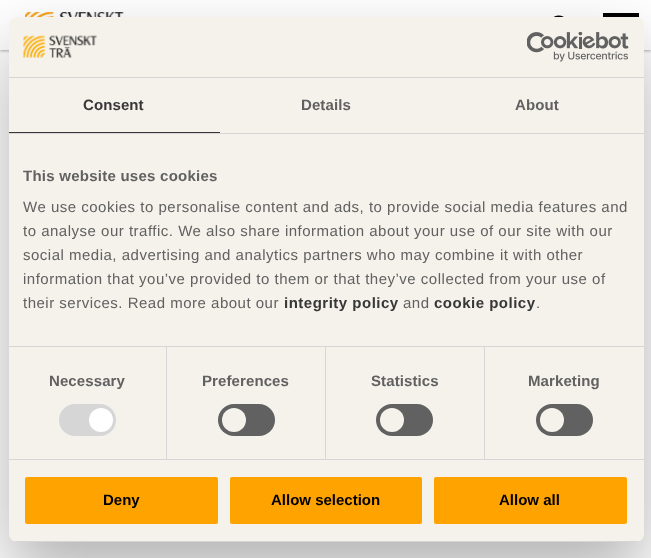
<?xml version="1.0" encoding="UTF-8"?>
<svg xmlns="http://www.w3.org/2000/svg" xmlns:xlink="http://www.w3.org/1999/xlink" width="651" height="558">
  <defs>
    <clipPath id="clip1"><rect x="9" y="17" width="635" height="525" rx="8" /></clipPath>
  </defs>
  <rect width="100%" height="100%" fill="#ffffff" />
  <rect y="1" width="651" height="50" fill="#000000" fill-opacity="0.3" filter="blur(1.5px)" />
  <rect width="651" height="50" fill="#ffffff" />
  <image x="25" y="12" width="99" height="5" xlink:href="image1.png" />
  <image x="553" y="15" width="11" height="2" xlink:href="image2.png" />
  <rect x="603" y="13" width="36" height="4" fill="#000000" />
  <rect x="9" y="49" width="635" height="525" rx="8" fill="#000000" fill-opacity="0.3" filter="blur(34px)" />
  <rect x="9" y="17" width="635" height="525" rx="8" fill="#f4f2eb" />
  <rect x="9" y="77" width="635" height="1" fill="#d6d6d6" />
  <image x="23" y="35" width="74" height="23" xlink:href="image3.png" />
  <image x="527" y="32" width="102" height="30" xlink:href="image4.png" />
  <rect x="9" y="133" width="635" height="1" fill="#d6d6d6" />
  <rect x="9" y="132" width="211" height="1" fill="#373737" />
  <rect x="9" y="346" width="635" height="1" fill="#d6d6d6" />
  <rect x="9" y="459" width="635" height="1" fill="#d6d6d6" />
  <rect x="166" y="347" width="1" height="112" fill="#d6d6d6" />
  <rect x="59" y="404" width="57" height="32" rx="16" fill="#d6d6d6" />
  <circle cx="101" cy="420" r="12" fill="#ffffff" />
  <rect x="325" y="347" width="1" height="112" fill="#d6d6d6" />
  <rect x="218" y="404" width="57" height="32" rx="16" fill="#626161" />
  <circle cx="234" cy="420" r="12" fill="#f4f2eb" />
  <rect x="484" y="347" width="1" height="112" fill="#d6d6d6" />
  <rect x="376" y="404" width="57" height="32" rx="16" fill="#626161" />
  <circle cx="392" cy="420" r="12" fill="#f4f2eb" />
  <rect x="536" y="404" width="57" height="32" rx="16" fill="#626161" />
  <circle cx="552" cy="420" r="12" fill="#f4f2eb" />
  <g clip-path="url(#clip1)">
    <rect x="9" y="541" width="635" height="1" fill="#d6d6d6" />
  </g>
  <rect x="24" y="476" width="195" height="49" rx="3" fill="#ffa300" stroke="#f4f2eb" stroke-width="2" />
  <rect x="229" y="476" width="194" height="49" rx="3" fill="#ffa300" stroke="#f4f2eb" stroke-width="2" />
  <rect x="433" y="476" width="195" height="49" rx="3" fill="#ffa300" stroke="#f4f2eb" stroke-width="2" />
  <text x="83" y="110" style="font-family: Liberation Sans; font-size: 15px; font-weight: bold; letter-spacing: 0.1px; fill: #373737">Consent</text>
  <text x="301" y="110" style="font-family: Liberation Sans; font-size: 15px; font-weight: bold; letter-spacing: 0.1px; fill: #626161">Details</text>
  <text x="515" y="110" style="font-family: Liberation Sans; font-size: 15px; font-weight: bold; letter-spacing: 0.1px; fill: #626161">About</text>
  <text x="23" y="181" style="font-family: Liberation Sans; font-size: 15px; font-weight: bold; letter-spacing: 0.25px; fill: #626161">This website uses cookies</text>
  <text x="23" y="212" style="font-family: Liberation Sans; font-size: 15px; letter-spacing: 0.5px; fill: #626161">We use cookies to personalise content and ads, to provide social media features and</text>
  <text x="23" y="236" style="font-family: Liberation Sans; font-size: 15px; letter-spacing: 0.5px; fill: #626161">to analyse our traffic. We also share information about your use of our site with our</text>
  <text x="23" y="260" style="font-family: Liberation Sans; font-size: 15px; letter-spacing: 0.5px; fill: #626161">social media, advertising and analytics partners who may combine it with other</text>
  <text x="23" y="284" style="font-family: Liberation Sans; font-size: 15px; letter-spacing: 0.5px; fill: #626161">information that you’ve provided to them or that they’ve collected from your use of</text>
  <text x="23" y="308" style="font-family: Liberation Sans; font-size: 15px; letter-spacing: 0.5px; fill: #626161">their services. Read more about our</text>
  <text x="284" y="308" style="font-family: Liberation Sans; font-size: 15px; font-weight: bold; letter-spacing: 0.5px; fill: #373737">integrity policy</text>
  <text x="403" y="308" style="font-family: Liberation Sans; font-size: 15px; letter-spacing: 0.5px; fill: #626161">and</text>
  <text x="434" y="308" style="font-family: Liberation Sans; font-size: 15px; font-weight: bold; letter-spacing: 0.5px; fill: #373737">cookie policy</text>
  <text x="536" y="308" style="font-family: Liberation Sans; font-size: 15px; letter-spacing: 0.5px; fill: #626161">.</text>
  <text x="49" y="386" style="font-family: Liberation Sans; font-size: 15px; font-weight: bold; letter-spacing: 0.1px; fill: #626161">Necessary</text>
  <text x="202" y="386" style="font-family: Liberation Sans; font-size: 15px; font-weight: bold; letter-spacing: 0.1px; fill: #626161">Preferences</text>
  <text x="371" y="386" style="font-family: Liberation Sans; font-size: 15px; font-weight: bold; letter-spacing: 0.1px; fill: #626161">Statistics</text>
  <text x="528" y="386" style="font-family: Liberation Sans; font-size: 15px; font-weight: bold; letter-spacing: 0.1px; fill: #626161">Marketing</text>
  <text x="103" y="505" style="font-family: Liberation Sans; font-size: 15px; font-weight: bold; fill: #000000">Deny</text>
  <text x="271" y="505" style="font-family: Liberation Sans; font-size: 15px; font-weight: bold; fill: #000000">Allow selection</text>
  <text x="499" y="505" style="font-family: Liberation Sans; font-size: 15px; font-weight: bold; fill: #000000">Allow all</text>
</svg>
